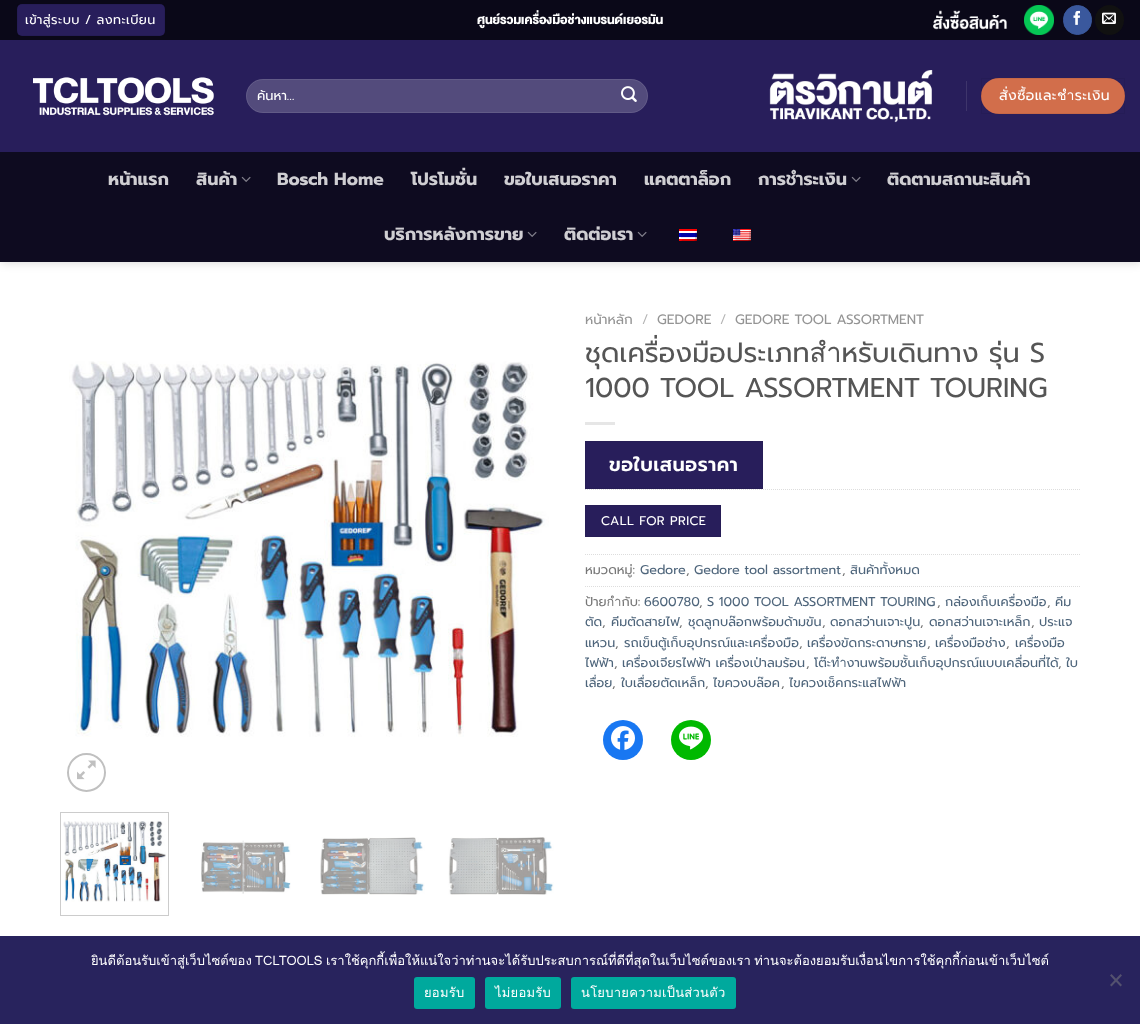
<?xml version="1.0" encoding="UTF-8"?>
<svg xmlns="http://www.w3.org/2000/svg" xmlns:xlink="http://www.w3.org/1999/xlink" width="1140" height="1024">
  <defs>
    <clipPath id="clip1"><rect x="257" y="86" width="376" height="20" /></clipPath>
  </defs>
  <rect width="100%" height="100%" fill="#ffffff" />
  <rect x="1" y="1" width="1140" height="262" fill="#000000" fill-opacity="0.15" filter="blur(5px)" />
  <rect width="1140" height="40" fill="#0a0818" />
  <rect x="17" y="4" width="148" height="32" rx="5" fill="#281e5b" />
  <rect x="17.5" y="4.5" width="147" height="31" fill="none" stroke="#000000" stroke-opacity="0.05" />
  <image x="477" y="10" width="186" height="19" xlink:href="image1.png" />
  <image x="933" y="10" width="74" height="20" xlink:href="image2.png" />
  <image x="1024" y="5" width="30" height="30" xlink:href="image3.png" />
  <rect x="1063.5" y="5.5" width="28" height="29" rx="14" fill="#3a589d" stroke="#3a589d" />
  <image x="1073" y="10" width="7" height="15" xlink:href="image4.png" />
  <rect x="1095" y="5" width="29" height="30" rx="14.5" fill="#111111" />
  <image x="1102" y="12" width="14" height="12" xlink:href="image5.png" />
  <rect y="40" width="1140" height="112" fill="#281e5b" />
  <image x="33" y="77" width="181" height="39" xlink:href="image6.png" />
  <rect x="246" y="79" width="402" height="34" rx="17" fill="#534b7c" />
  <rect x="246.5" y="79.5" width="401" height="33" rx="16.5" fill="none" stroke="#ffffff" stroke-opacity="0.09" />
  <image x="621" y="86" width="16" height="16" xlink:href="image7.png" />
  <image x="769" y="70" width="164" height="53" xlink:href="image8.png" />
  <rect x="966" y="81" width="1" height="30" fill="#3e356b" />
  <rect x="981" y="78" width="144" height="36" rx="18" fill="#d26e4b" />
  <rect x="981.5" y="78.5" width="143" height="35" fill="none" stroke="#000000" stroke-opacity="0.05" />
  <rect y="152" width="1140" height="110" fill="#0e0b20" />
  <image x="241" y="176" width="10" height="6" xlink:href="image9.png" />
  <image x="851" y="176" width="10" height="6" xlink:href="image9.png" />
  <image x="527" y="231" width="10" height="6" xlink:href="image9.png" />
  <image x="637" y="231" width="10" height="6" xlink:href="image9.png" />
  <image x="679" y="229" width="18" height="12" xlink:href="image10.png" />
  <image x="733" y="229" width="18" height="12" xlink:href="image11.png" />
  <image x="69" y="361" width="480" height="376" xlink:href="image12.png" />
  <circle cx="86.5" cy="772.5" r="18.5" fill="none" stroke="#c0c0c0" stroke-width="2" />
  <image x="77" y="760" width="19" height="20" xlink:href="image13.png" />
  <rect x="60.5" y="812.5" width="108" height="103" fill="none" stroke="#cccccc" />
  <image x="63" y="821" width="103" height="81" xlink:href="image14.png" />
  <image x="201" y="840" width="90" height="54" xlink:href="image15.png" />
  <image x="320" y="837" width="105" height="58" xlink:href="image16.png" />
  <image x="448" y="837" width="106" height="58" xlink:href="image17.png" />
  <rect x="585" y="422" width="30" height="3" fill="#e6e6e6" />
  <rect x="585.5" y="441.5" width="177" height="47" fill="#281e5b" stroke="#261d56" />
  <path d="M 585 489.5 h 495" fill="none" stroke="#dddddd" stroke-dasharray="1 1" />
  <rect x="585.5" y="505.5" width="135" height="31" fill="#281e5b" stroke="#261d56" />
  <path d="M 585 554.5 h 495" fill="none" stroke="#dddddd" stroke-dasharray="1 1" />
  <path d="M 585 586.5 h 495" fill="none" stroke="#dddddd" stroke-dasharray="1 1" />
  <circle cx="623" cy="740" r="20" fill="#1877f2" />
  <image x="611" y="726" width="24" height="24" xlink:href="image18.png" />
  <circle cx="691" cy="740" r="20" fill="#00b900" />
  <image x="679" y="726" width="24" height="24" xlink:href="image19.png" />
  <rect y="936" width="1140" height="88" fill="#28235d" />
  <path d="M 1120.5 974 l 1.5 1.5 l -10.5 11 l -1.5 -1.5 z" fill="#54526f" />
  <path d="M 1110 975.5 l 1.5 -1.5 l 10.5 11 l -1.5 1.5 z" fill="#54526f" />
  <rect x="414" y="977" width="61" height="32" rx="3" fill="#00a99d" />
  <rect x="485" y="977" width="76" height="32" rx="3" fill="#00a99d" />
  <rect x="571" y="977" width="165" height="32" rx="3" fill="#00a99d" />
  <text x="25" y="24" style="font-family: Prompt; font-size: 12.75px; letter-spacing: 0.4px; fill: #ffffff">เข้าสู่ระบบ</text>
  <text x="85" y="24" style="font-family: Prompt; font-size: 12.75px; letter-spacing: 0.4px; fill: #ffffff">/ ลงทะเบียน</text>
  <g clip-path="url(#clip1)">
    <text x="257" y="100" style="font-family: Prompt; font-size: 13px; fill: #ffffff">ค้นหา…</text>
  </g>
  <text x="999" y="100" style="font-family: Prompt; font-size: 14px; letter-spacing: 0.4px; fill: #ffffff">สั่งซื้อและชำระเงิน</text>
  <text x="108" y="185" style="font-family: Prompt; font-size: 17.5px; font-weight: bold; fill: #cfced2">หน้าแรก</text>
  <text x="196" y="185" style="font-family: Prompt; font-size: 17.5px; font-weight: bold; fill: #cfced2">สินค้า</text>
  <text x="277" y="185" style="font-family: Prompt; font-size: 17.5px; font-weight: bold; fill: #cfced2">Bosch Home</text>
  <text x="411" y="185" style="font-family: Prompt; font-size: 17.5px; font-weight: bold; fill: #cfced2">โปรโมชั่น</text>
  <text x="504" y="185" style="font-family: Prompt; font-size: 17.5px; font-weight: bold; fill: #cfced2">ขอใบเสนอราคา</text>
  <text x="644" y="185" style="font-family: Prompt; font-size: 17.5px; font-weight: bold; fill: #cfced2">แคตตาล็อก</text>
  <text x="758" y="185" style="font-family: Prompt; font-size: 17.5px; font-weight: bold; fill: #cfced2">การชำระเงิน</text>
  <text x="887" y="185" style="font-family: Prompt; font-size: 17.5px; font-weight: bold; fill: #cfced2">ติดตามสถานะสินค้า</text>
  <text x="384" y="240" style="font-family: Prompt; font-size: 17.5px; font-weight: bold; fill: #cfced2">บริการหลังการขาย</text>
  <text x="564" y="240" style="font-family: Prompt; font-size: 17.5px; font-weight: bold; fill: #cfced2">ติดต่อเรา</text>
  <text x="585" y="324" style="font-family: Prompt; font-size: 13.6px; fill: #949494">หน้าหลัก</text>
  <text x="642" y="324" style="font-family: Prompt; font-size: 13.6px; font-weight: 300; fill: #b2b2b2">/</text>
  <text x="657" y="324" style="font-family: Prompt; font-size: 13.6px; fill: #949494">GEDORE</text>
  <text x="720" y="324" style="font-family: Prompt; font-size: 13.6px; font-weight: 300; fill: #b2b2b2">/</text>
  <text x="735" y="324" style="font-family: Prompt; font-size: 13.6px; fill: #949494">GEDORE TOOL ASSORTMENT</text>
  <text x="585" y="362" style="font-family: Prompt; font-size: 27.25px; fill: #555555">ชุดเครื่องมือประเภทสำหรับเดินทาง รุ่น S</text>
  <text x="585" y="397" style="font-family: Prompt; font-size: 27.25px; fill: #555555">1000 TOOL ASSORTMENT TOURING</text>
  <text x="609" y="471" style="font-family: Prompt; font-size: 19.25px; font-weight: 600; letter-spacing: 0.5px; fill: #ffffff">ขอใบเสนอราคา</text>
  <text x="601" y="525" style="font-family: Prompt; font-size: 12.5px; letter-spacing: 0.4px; fill: #ffffff">CALL FOR PRICE</text>
  <text x="585" y="574" style="font-family: Prompt; font-size: 12.75px; fill: #777777">หมวดหมู่:</text>
  <text x="640" y="574" style="font-family: Prompt; font-size: 12.75px; fill: #4e657b">Gedore</text>
  <text x="686" y="574" style="font-family: Prompt; font-size: 12.75px; fill: #777777">,</text>
  <text x="694" y="574" style="font-family: Prompt; font-size: 12.75px; fill: #4e657b">Gedore tool assortment</text>
  <text x="842" y="574" style="font-family: Prompt; font-size: 12.75px; fill: #777777">,</text>
  <text x="850" y="574" style="font-family: Prompt; font-size: 12.75px; fill: #4e657b">สินค้าทั้งหมด</text>
  <text x="585" y="606" style="font-family: Prompt; font-size: 12.75px; fill: #777777">ป้ายกำกับ:</text>
  <text x="644" y="606" style="font-family: Prompt; font-size: 12.75px; fill: #4e657b">6600780</text>
  <text x="699" y="606" style="font-family: Prompt; font-size: 12.75px; fill: #777777">,</text>
  <text x="707" y="606" style="font-family: Prompt; font-size: 12.75px; fill: #4e657b">S 1000 TOOL ASSORTMENT TOURING</text>
  <text x="937" y="606" style="font-family: Prompt; font-size: 12.75px; fill: #777777">,</text>
  <text x="945" y="606" style="font-family: Prompt; font-size: 12.75px; fill: #4e657b">กล่องเก็บเครื่องมือ</text>
  <text x="1047" y="606" style="font-family: Prompt; font-size: 12.75px; fill: #777777">,</text>
  <text x="1055" y="606" style="font-family: Prompt; font-size: 12.75px; fill: #4e657b">คีม</text>
  <text x="585" y="626" style="font-family: Prompt; font-size: 12.75px; fill: #4e657b">ตัด</text>
  <text x="688" y="626" style="font-family: Prompt; font-size: 12.75px; fill: #4e657b">ชุดลูกบล๊อกพร้อมด้ามขัน</text>
  <text x="830" y="626" style="font-family: Prompt; font-size: 12.75px; fill: #4e657b">ดอกสว่านเจาะปูน</text>
  <text x="929" y="626" style="font-family: Prompt; font-size: 12.75px; fill: #4e657b">ดอกสว่านเจาะเหล็ก</text>
  <text x="1039" y="626" style="font-family: Prompt; font-size: 12.75px; fill: #4e657b">ประแจ</text>
  <text x="602" y="626" style="font-family: Prompt; font-size: 12.75px; fill: #777777">,</text>
  <text x="611" y="626" style="font-family: Prompt; font-size: 12.75px; fill: #4e657b">คีมตัดสายไฟ</text>
  <text x="679" y="626" style="font-family: Prompt; font-size: 12.75px; fill: #777777">,</text>
  <text x="822" y="626" style="font-family: Prompt; font-size: 12.75px; fill: #777777">,</text>
  <text x="920" y="626" style="font-family: Prompt; font-size: 12.75px; fill: #777777">,</text>
  <text x="1031" y="626" style="font-family: Prompt; font-size: 12.75px; fill: #777777">,</text>
  <text x="585" y="647" style="font-family: Prompt; font-size: 12.75px; fill: #4e657b">แหวน</text>
  <text x="615" y="647" style="font-family: Prompt; font-size: 12.75px; fill: #777777">,</text>
  <text x="624" y="647" style="font-family: Prompt; font-size: 12.75px; fill: #4e657b">รถเข็นตู้เก็บอุปกรณ์และเครื่องมือ</text>
  <text x="799" y="647" style="font-family: Prompt; font-size: 12.75px; fill: #777777">,</text>
  <text x="807" y="647" style="font-family: Prompt; font-size: 12.75px; fill: #4e657b">เครื่องขัดกระดาษทราย</text>
  <text x="927" y="647" style="font-family: Prompt; font-size: 12.75px; fill: #777777">,</text>
  <text x="935" y="647" style="font-family: Prompt; font-size: 12.75px; fill: #4e657b">เครื่องมือช่าง</text>
  <text x="1006" y="647" style="font-family: Prompt; font-size: 12.75px; fill: #777777">,</text>
  <text x="1015" y="647" style="font-family: Prompt; font-size: 12.75px; fill: #4e657b">เครื่องมือ</text>
  <text x="585" y="667" style="font-family: Prompt; font-size: 12.75px; fill: #4e657b">ไฟฟ้า</text>
  <text x="614" y="667" style="font-family: Prompt; font-size: 12.75px; fill: #777777">,</text>
  <text x="622" y="667" style="font-family: Prompt; font-size: 12.75px; fill: #4e657b">เครื่องเจียรไฟฟ้า เครื่องเป่าลมร้อน</text>
  <text x="806" y="667" style="font-family: Prompt; font-size: 12.75px; fill: #777777">,</text>
  <text x="814" y="667" style="font-family: Prompt; font-size: 12.75px; fill: #4e657b">โต๊ะทำงานพร้อมชั้นเก็บอุปกรณ์แบบเคลื่อนที่ได้</text>
  <text x="1058" y="667" style="font-family: Prompt; font-size: 12.75px; fill: #777777">,</text>
  <text x="1066" y="667" style="font-family: Prompt; font-size: 12.75px; fill: #4e657b">ใบ</text>
  <text x="585" y="687" style="font-family: Prompt; font-size: 12.75px; fill: #4e657b">เลื่อย</text>
  <text x="612" y="687" style="font-family: Prompt; font-size: 12.75px; fill: #777777">,</text>
  <text x="621" y="687" style="font-family: Prompt; font-size: 12.75px; fill: #4e657b">ใบเลื่อยตัดเหล็ก</text>
  <text x="705" y="687" style="font-family: Prompt; font-size: 12.75px; fill: #777777">,</text>
  <text x="713" y="687" style="font-family: Prompt; font-size: 12.75px; fill: #4e657b">ไขควงบล๊อค</text>
  <text x="781" y="687" style="font-family: Prompt; font-size: 12.75px; fill: #777777">,</text>
  <text x="789" y="687" style="font-family: Prompt; font-size: 12.75px; fill: #4e657b">ไขควงเช็คกระแสไฟฟ้า</text>
  <text x="91" y="965" word-spacing="-1" style="font-family: Loma; font-size: 13px; fill: #ffffff">ยินดีต้อนรับเข้าสู่เว็บไซต์ของ TCLTOOLS เราใช้คุกกี้เพื่อให้แน่ใจว่าท่านจะได้รับประสบการณ์ที่ดีที่สุดในเว็บไซต์ของเรา ท่านจะต้องยอมรับเงื่อนไขการใช้คุกกี้ก่อนเข้าเว็บไซต์</text>
  <text x="424" y="997" style="font-family: Loma; font-size: 13px; letter-spacing: 0.25px; fill: #ffffff">ยอมรับ</text>
  <text x="495" y="997" style="font-family: Loma; font-size: 13px; letter-spacing: 0.25px; fill: #ffffff">ไม่ยอมรับ</text>
  <text x="581" y="997" style="font-family: Loma; font-size: 13px; letter-spacing: 0.25px; fill: #ffffff">นโยบายความเป็นส่วนตัว</text>
</svg>
